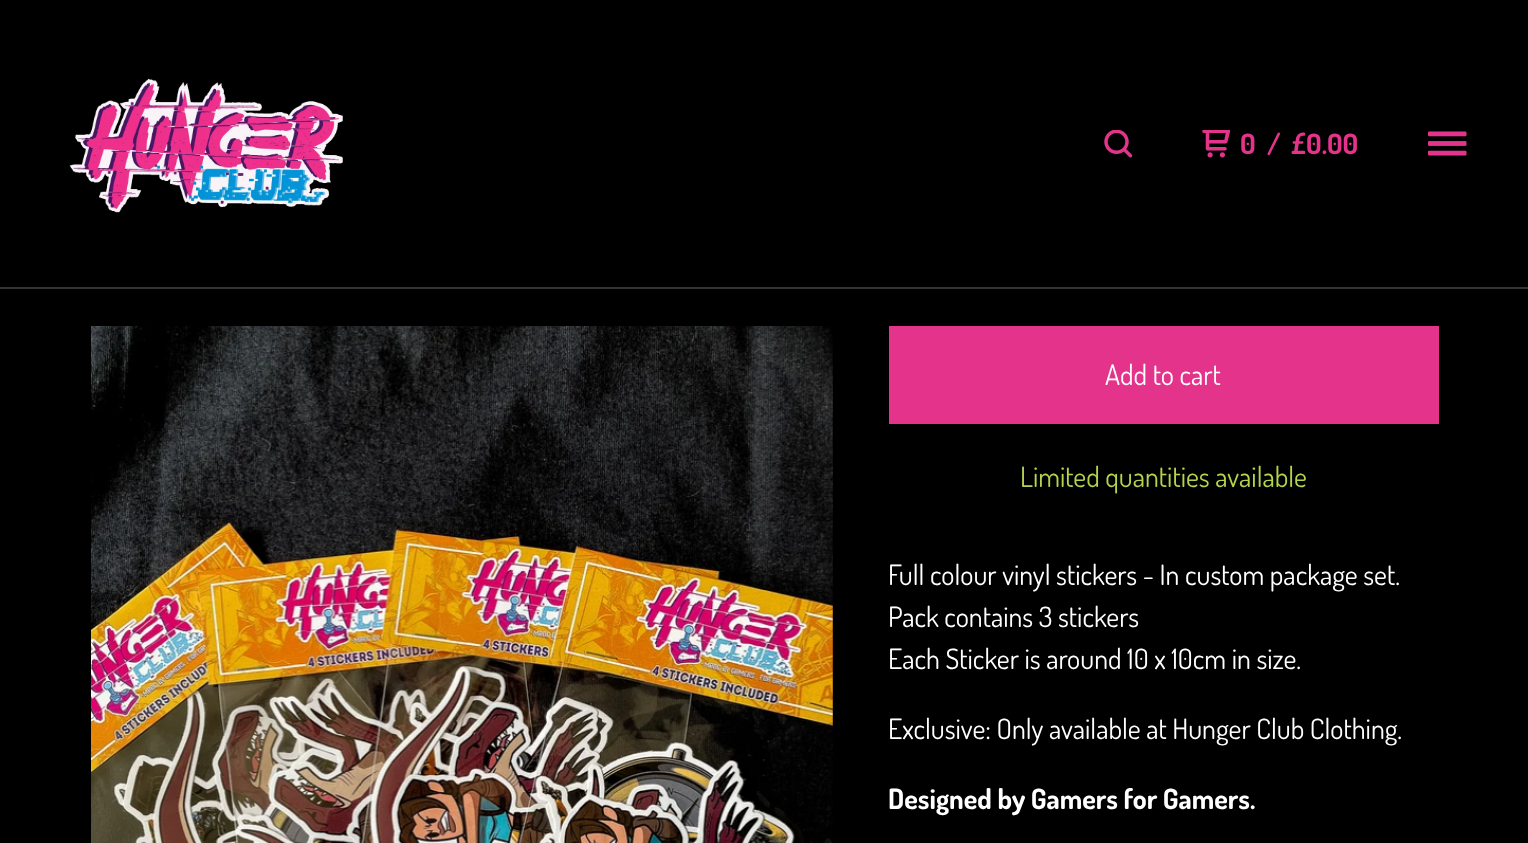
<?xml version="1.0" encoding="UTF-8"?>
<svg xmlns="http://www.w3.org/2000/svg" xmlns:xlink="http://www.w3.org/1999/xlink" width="1528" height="843">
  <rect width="100%" height="100%" fill="#000000" />
  <rect y="287" width="1528" height="2" fill="#333333" />
  <image x="69" y="78" width="274" height="135" xlink:href="image1.png" />
  <image x="1104" y="130" width="28" height="28" xlink:href="image2.png" />
  <image x="1202" y="130" width="28" height="28" xlink:href="image3.png" />
  <image x="1428" y="131" width="39" height="25" xlink:href="image4.png" />
  <image x="91" y="326" width="742" height="517" xlink:href="image5.png" />
  <rect x="889" y="326" width="550" height="98" fill="#e3338b" />
  <text x="1240" y="154" style="font-family: Dosis; font-size: 28px; font-weight: bold; fill: #e3338b">0</text>
  <text x="1267" y="154" style="font-family: Dosis; font-size: 28px; font-weight: bold; fill: #e3338b">/</text>
  <text x="1291" y="154" style="font-family: Dosis; font-size: 28px; font-weight: bold; fill: #e3338b">£0.00</text>
  <text x="1105" y="385" style="font-family: Dosis; font-size: 28px; fill: #ffffff">Add to cart</text>
  <text x="1020" y="487" style="font-family: Dosis; font-size: 28px; fill: #b4d44d">Limited quantities available</text>
  <text x="888" y="585" style="font-family: Dosis; font-size: 28px; fill: #ffffff">Full colour vinyl stickers - In custom package set.</text>
  <text x="888" y="627" style="font-family: Dosis; font-size: 28px; fill: #ffffff">Pack contains 3 stickers</text>
  <text x="888" y="669" style="font-family: Dosis; font-size: 28px; fill: #ffffff">Each Sticker is around 10 x 10cm in size.</text>
  <text x="888" y="739" style="font-family: Dosis; font-size: 28px; fill: #ffffff">Exclusive: Only available at Hunger Club Clothing.</text>
  <text x="888" y="809" style="font-family: Dosis; font-size: 28px; font-weight: bold; fill: #ffffff">Designed by Gamers for Gamers.</text>
</svg>
